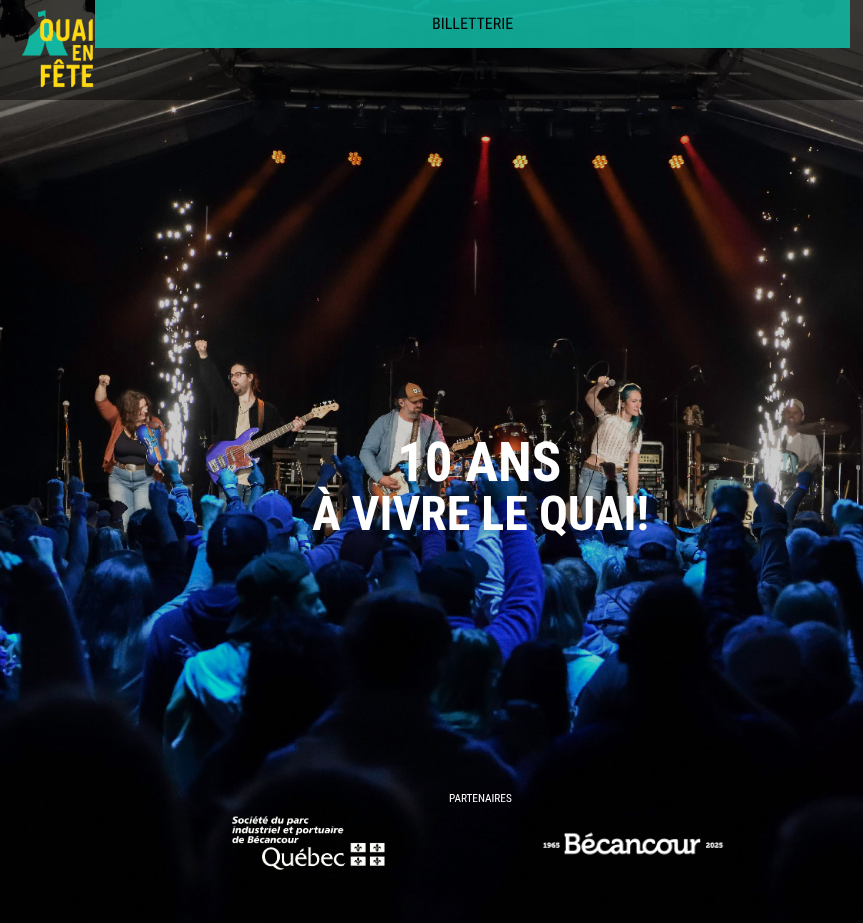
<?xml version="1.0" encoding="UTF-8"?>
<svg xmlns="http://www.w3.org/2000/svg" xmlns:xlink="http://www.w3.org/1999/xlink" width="863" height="923">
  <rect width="100%" height="100%" fill="#ffffff" />
  <image x="0" y="0" width="863" height="923" xlink:href="image2.png" />
  <rect width="863" height="100" fill="#000000" fill-opacity="0.5" />
  <image x="21" y="10" width="73" height="78" xlink:href="image1.png" />
  <rect x="95" width="755" height="48" fill="#11b5a0" fill-opacity="0.9" />
  <image x="232" y="816" width="153" height="55" xlink:href="image3.png" />
  <image x="542" y="832" width="182" height="23" xlink:href="image4.png" />
  <text x="432" y="29" style="font-family: Roboto Condensed; font-size: 16px; fill: #000000">BILLETTERIE</text>
  <text x="397" y="481" style="font-family: Roboto Condensed; font-size: 55px; font-weight: bold; fill: #ffffff">10 ANS</text>
  <text x="312" y="530" style="font-family: Roboto Condensed; font-size: 48px; font-weight: bold; fill: #ffffff">À VIVRE LE QUAI!</text>
  <text x="449" y="802" style="font-family: Roboto Condensed; font-size: 11.25px; fill: #ffffff">PARTENAIRES</text>
</svg>
